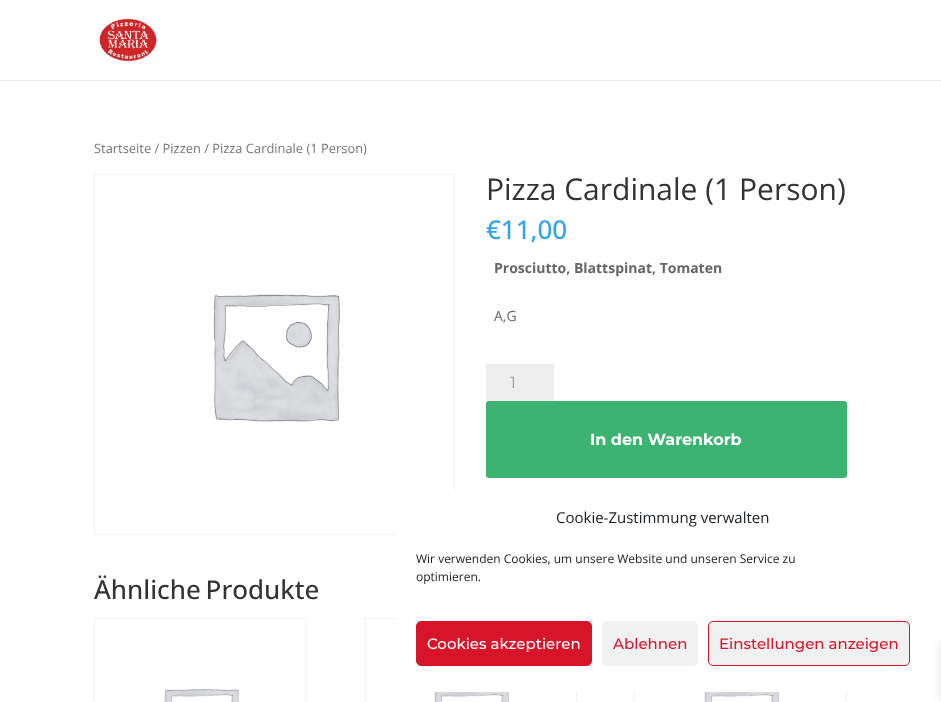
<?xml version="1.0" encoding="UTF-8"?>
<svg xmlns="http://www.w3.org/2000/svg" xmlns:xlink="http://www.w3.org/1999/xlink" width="941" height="702">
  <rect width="100%" height="100%" fill="#ffffff" />
  <rect y="80" width="941" height="1" fill="#e6e6e6" />
  <image x="99" y="18" width="58" height="44" xlink:href="image1.png" />
  <rect x="94.5" y="174.5" width="360" height="360" fill="none" stroke="#f2f2f2" />
  <image x="213" y="294" width="127" height="128" xlink:href="image2.png" />
  <rect x="486" y="364" width="68" height="37" fill="#eeeeee" />
  <rect x="486" y="401" width="361" height="77" rx="3" fill="#3cb371" />
  <rect x="94.5" y="618.5" width="212" height="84" fill="none" stroke="#f2f2f2" />
  <image x="164" y="689" width="75" height="13" xlink:href="image3.png" />
  <rect x="364.5" y="618.5" width="212" height="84" fill="none" stroke="#f2f2f2" />
  <image x="434" y="692" width="75" height="10" xlink:href="image4.png" />
  <rect x="634.5" y="618.5" width="212" height="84" fill="none" stroke="#f2f2f2" />
  <image x="704" y="692" width="75" height="10" xlink:href="image4.png" />
  <rect x="395" y="490" width="536" height="202" rx="12" fill="#ffffff" />
  <rect x="416.5" y="621.5" width="175" height="44" rx="4.5" fill="#d8142a" stroke="#d8142a" />
  <rect x="602.5" y="621.5" width="95" height="44" rx="4.5" fill="#f1f1f1" stroke="#f1f1f1" />
  <rect x="708.5" y="621.5" width="201" height="44" rx="4.5" fill="#f1f1f1" stroke="#d8142a" />
  <rect x="941" y="641" width="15" height="60" fill="#000000" fill-opacity="0.1" filter="blur(5px)" />
  <text x="94" y="153" style="font-family: Open Sans; font-size: 12.9px; fill: #767676">Startseite / Pizzen / Pizza Cardinale (1 Person)</text>
  <text x="486" y="200" style="font-family: Open Sans; font-size: 30px; fill: #333333">Pizza Cardinale (1 Person)</text>
  <text x="486" y="239" style="font-family: Open Sans; font-size: 26px; font-weight: 500; fill: #2ea3f2">€11,00</text>
  <text x="494" y="273" style="font-family: Open Sans; font-size: 14px; font-weight: bold; fill: #666666">Prosciutto, Blattspinat, Tomaten</text>
  <text x="494" y="321" style="font-family: Open Sans; font-size: 14px; fill: #666666">A,G</text>
  <text x="510" y="388" style="font-family: Montserrat; font-size: 16px; fill: #999999">1</text>
  <text x="590" y="445" style="font-family: Montserrat; font-size: 16px; font-weight: bold; fill: #ffffff">In den Warenkorb</text>
  <text x="94" y="599" word-spacing="-2" style="font-family: Open Sans; font-size: 26px; font-weight: 500; fill: #333333">Ähnliche Produkte</text>
  <text x="556" y="523" style="font-family: Open Sans; font-size: 15px; fill: #191e23">Cookie-Zustimmung verwalten</text>
  <text x="416" y="563" style="font-family: Open Sans; font-size: 12px; fill: #191e23">Wir verwenden Cookies, um unsere Website und unseren Service zu</text>
  <text x="416" y="581" style="font-family: Open Sans; font-size: 12px; fill: #191e23">optimieren.</text>
  <text x="427" y="649" style="font-family: Montserrat; font-size: 15px; font-weight: 500; fill: #ffffff">Cookies akzeptieren</text>
  <text x="613" y="649" style="font-family: Montserrat; font-size: 15px; font-weight: 500; fill: #d8142a">Ablehnen</text>
  <text x="719" y="649" style="font-family: Montserrat; font-size: 15px; font-weight: 500; fill: #d8142a">Einstellungen anzeigen</text>
</svg>
